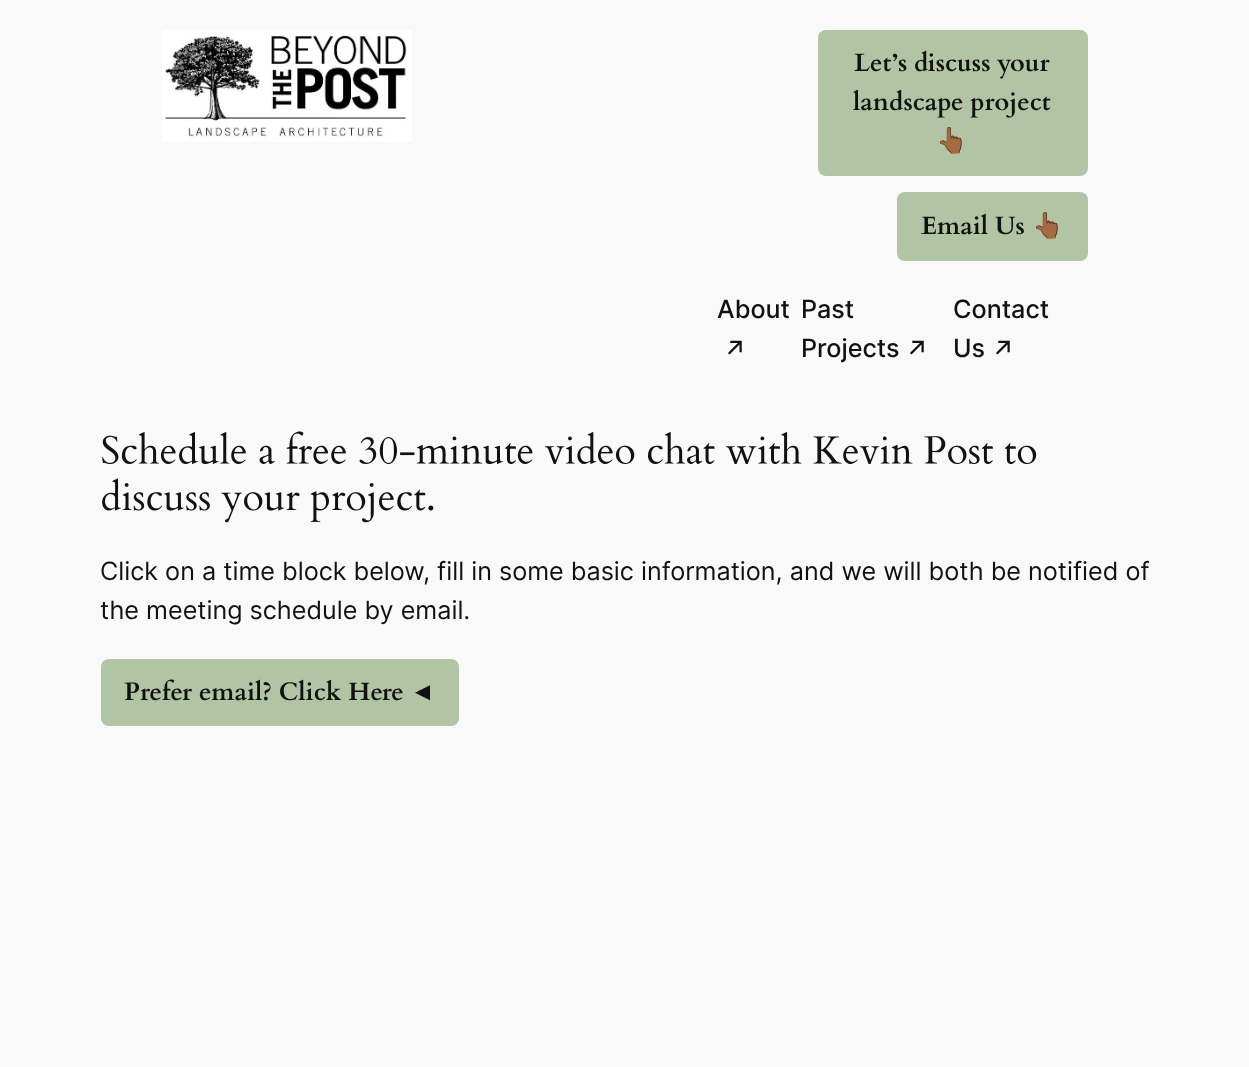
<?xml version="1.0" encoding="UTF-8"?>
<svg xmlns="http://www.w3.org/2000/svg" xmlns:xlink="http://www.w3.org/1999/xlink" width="1249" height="1067">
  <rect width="100%" height="100%" fill="#f9f9f9" />
  <image x="162" y="30" width="250" height="112" xlink:href="image1.png" />
  <rect x="818" y="30" width="270" height="146" rx="8" fill="#b1c5a4" />
  <rect x="897" y="192" width="191" height="69" rx="8" fill="#b1c5a4" />
  <image x="102" y="431" width="935" height="33" xlink:href="image2.png" />
  <image x="102" y="478" width="332" height="45" xlink:href="image3.png" />
  <rect x="101" y="659" width="358" height="67" rx="8" fill="#b1c5a4" />
  <text x="854" y="71" style="font-family: Cardo; font-size: 25.2px; font-weight: bold; fill: #111111">Let’s discuss your</text>
  <text x="853" y="110" style="font-family: Cardo; font-size: 25.2px; font-weight: bold; fill: #111111">landscape project</text>
  <text x="936" y="149" style="font-family: Noto Color Emoji; font-size: 25.2px; font-weight: bold; fill: #111111">👆🏾</text>
  <text x="921" y="234" style="font-family: Cardo; font-size: 25.2px; font-weight: bold; fill: #111111">Email Us</text>
  <text x="1032" y="234" style="font-family: Noto Color Emoji; font-size: 25.2px; font-weight: bold; fill: #111111">👆🏾</text>
  <text x="717" y="318" style="font-family: Inter; font-size: 25.2px; font-weight: 500; fill: #111111">About</text>
  <text x="723" y="359" style="font-family: Inter; font-size: 25.2px; font-weight: 500; fill: #111111">↗</text>
  <text x="801" y="318" style="font-family: Inter; font-size: 25.2px; font-weight: 500; fill: #111111">Past</text>
  <text x="801" y="357" style="font-family: Inter; font-size: 25.2px; font-weight: 500; fill: #111111">Projects</text>
  <text x="905" y="359" style="font-family: Inter; font-size: 25.2px; font-weight: 500; fill: #111111">↗</text>
  <text x="953" y="318" style="font-family: Inter; font-size: 25.2px; font-weight: 500; fill: #111111">Contact</text>
  <text x="953" y="357" style="font-family: Inter; font-size: 25.2px; font-weight: 500; fill: #111111">Us</text>
  <text x="991" y="359" style="font-family: Inter; font-size: 25.2px; font-weight: 500; fill: #111111">↗</text>
  <text x="100" y="580" style="font-family: Inter; font-size: 25.2px; fill: #111111">Click on a time block below, fill in some basic information, and we will both be notified of</text>
  <text x="100" y="619" style="font-family: Inter; font-size: 25.2px; fill: #111111">the meeting schedule by email.</text>
  <text x="124" y="700" style="font-family: Cardo; font-size: 25.2px; font-weight: bold; fill: #111111">Prefer email? Click Here</text>
  <text x="410" y="700" style="font-family: Liberation Serif; font-size: 25.2px; font-weight: bold; fill: #111111">◄</text>
</svg>
